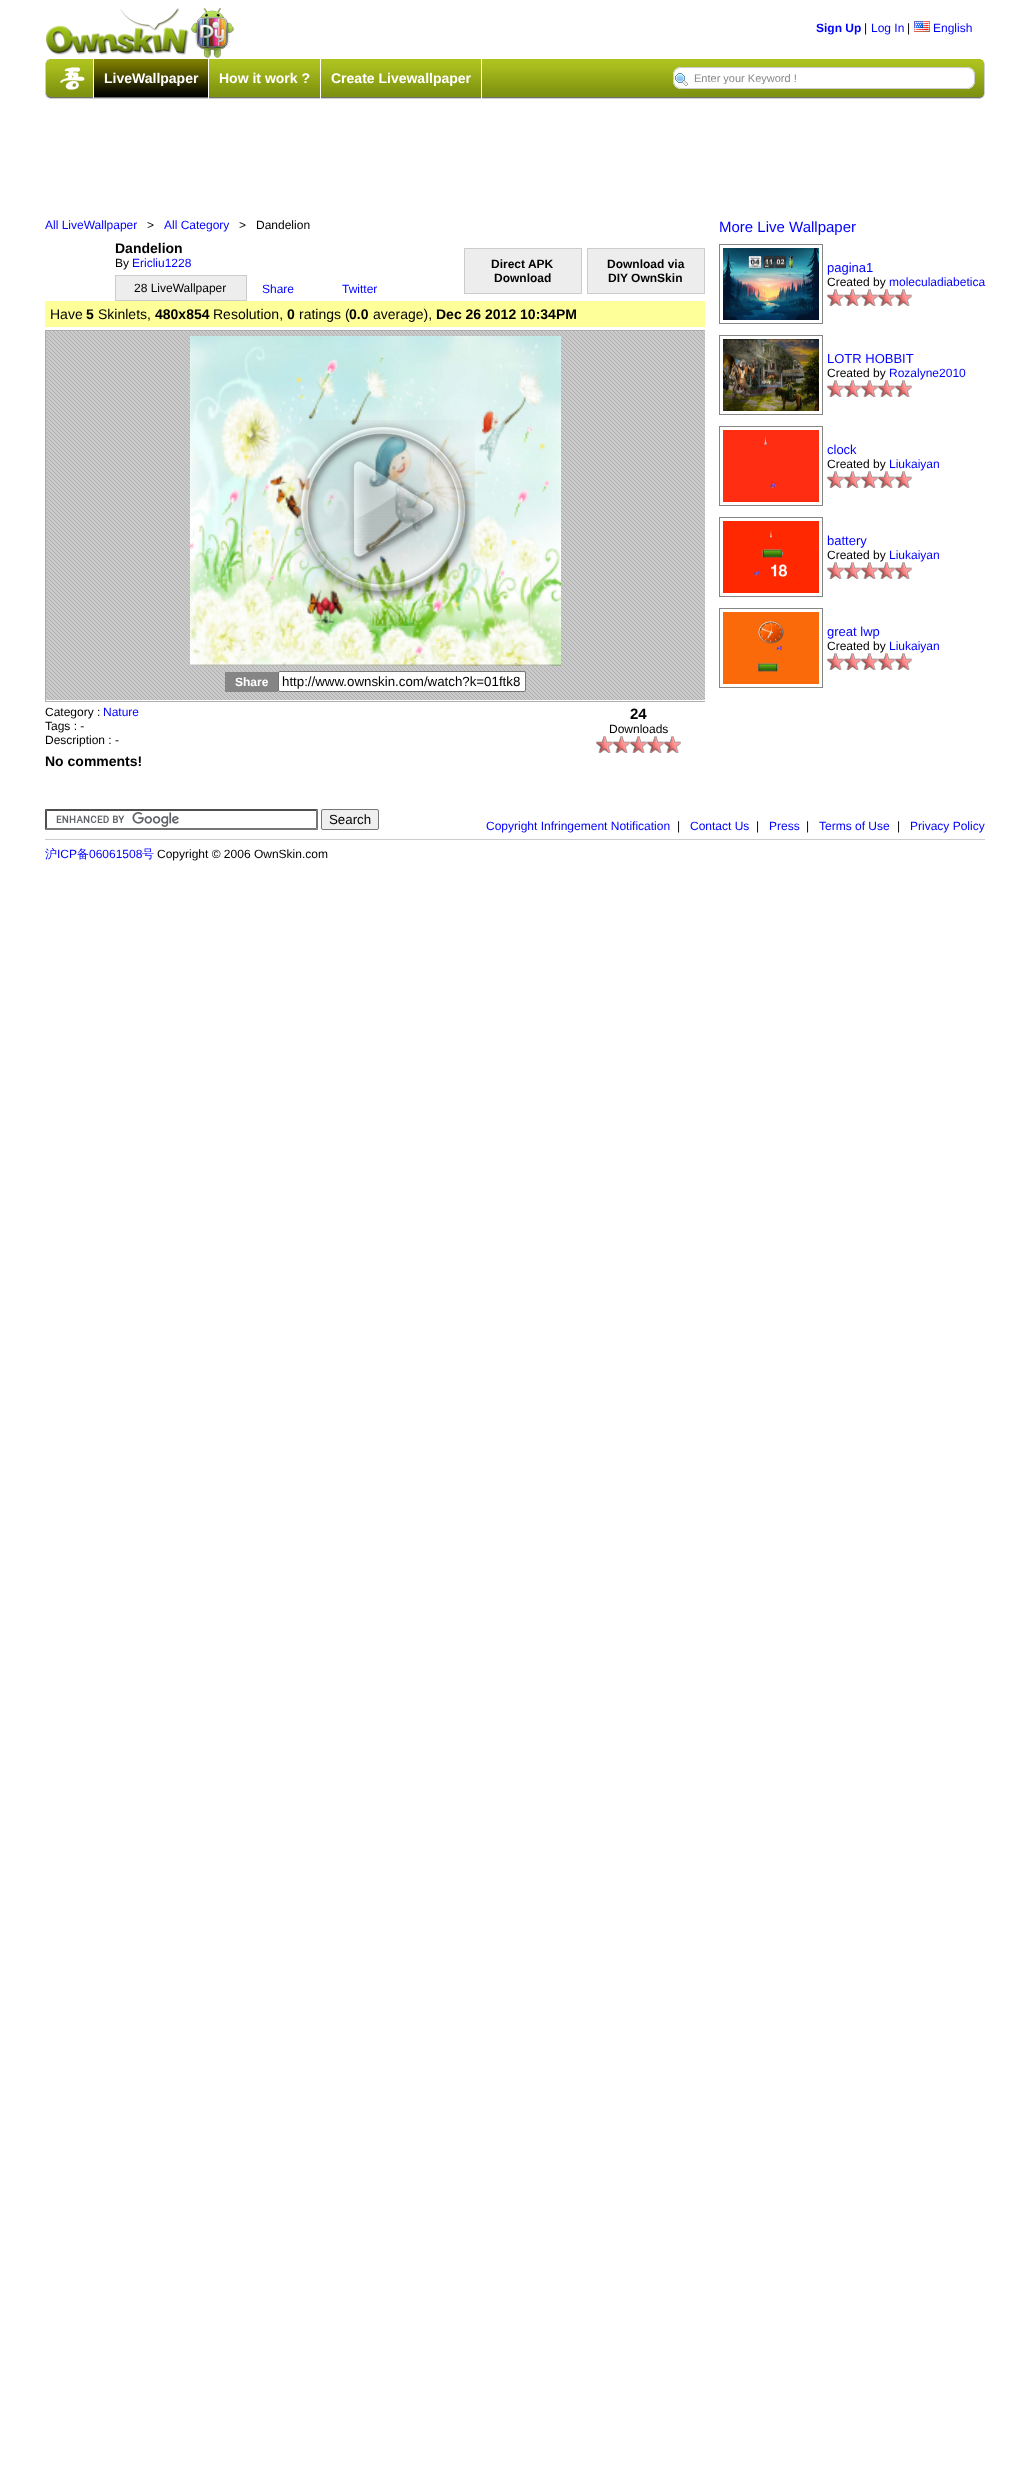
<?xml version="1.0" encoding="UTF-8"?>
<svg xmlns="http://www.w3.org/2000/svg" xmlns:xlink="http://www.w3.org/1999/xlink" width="1029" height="2470">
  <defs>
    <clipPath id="clip1"><rect x="45" y="240" width="660" height="513" /></clipPath>
    <clipPath id="clip2"><rect x="694" y="72" width="280" height="12" /></clipPath>
  </defs>
  <rect width="100%" height="100%" fill="#ffffff" />
  <image x="46" y="8" width="188" height="50" xlink:href="image1.png" />
  <image x="914" y="21" width="16" height="11" xlink:href="image2.png" />
  <image x="45" y="59" width="7" height="40" xlink:href="image3.png" />
  <image x="52" y="59" width="926" height="40" xlink:href="image4.png" />
  <rect x="93" y="59" width="1" height="39" fill="#ffffff" />
  <image x="60" y="67" width="25" height="23" xlink:href="image5.png" />
  <rect x="208" y="59" width="1" height="40" fill="#ffffff" />
  <image x="94" y="59" width="114" height="38" xlink:href="image6.png" />
  <rect x="320" y="59" width="1" height="40" fill="#ffffff" />
  <rect x="481" y="59" width="1" height="40" fill="#ffffff" />
  <rect x="673" y="67" width="302" height="22" rx="8" fill="#ffffff" />
  <image x="675" y="73" width="13" height="13" xlink:href="image7.png" />
  <rect x="673.5" y="67.5" width="301" height="21" rx="7.5" fill="none" stroke="#cccccc" />
  <image x="978" y="59" width="7" height="40" xlink:href="image8.png" />
  <rect x="115.5" y="275.5" width="131" height="25" fill="#ededed" stroke="#cccccc" />
  <rect x="464.5" y="248.5" width="117" height="45" fill="#ededed" stroke="#cccccc" />
  <rect x="587.5" y="248.5" width="117" height="45" fill="#ededed" stroke="#cccccc" />
  <rect x="45" y="301" width="660" height="26" fill="#ffff99" />
  <image x="46" y="331" width="659" height="369" xlink:href="image9.png" />
  <g clip-path="url(#clip1)">
    <rect x="45.5" y="330.5" width="661" height="371" fill="none" stroke="#adadad" />
  </g>
  <image x="190" y="336" width="371" height="330" xlink:href="image10.png" />
  <image x="294" y="420" width="181" height="181" xlink:href="image11.png" />
  <rect x="225" y="672" width="53" height="20" fill="#858585" />
  <rect x="278.5" y="671.5" width="247" height="20" rx="1.5" fill="#ffffff" stroke="#767676" />
  <image x="596" y="736" width="17" height="17" xlink:href="image12.png" />
  <image x="613" y="736" width="17" height="17" xlink:href="image12.png" />
  <image x="630" y="736" width="17" height="17" xlink:href="image12.png" />
  <image x="647" y="736" width="17" height="17" xlink:href="image12.png" />
  <image x="664" y="736" width="17" height="17" xlink:href="image12.png" />
  <rect x="719.5" y="244.5" width="103" height="79" fill="none" stroke="#858585" />
  <image x="723" y="248" width="96" height="72" xlink:href="image13.png" />
  <image x="827" y="289" width="17" height="17" xlink:href="image12.png" />
  <image x="844" y="289" width="17" height="17" xlink:href="image12.png" />
  <image x="861" y="289" width="17" height="17" xlink:href="image12.png" />
  <image x="878" y="289" width="17" height="17" xlink:href="image12.png" />
  <image x="895" y="289" width="17" height="17" xlink:href="image12.png" />
  <rect x="719.5" y="335.5" width="103" height="79" fill="none" stroke="#858585" />
  <image x="723" y="339" width="96" height="72" xlink:href="image14.png" />
  <image x="827" y="380" width="17" height="17" xlink:href="image12.png" />
  <image x="844" y="380" width="17" height="17" xlink:href="image12.png" />
  <image x="861" y="380" width="17" height="17" xlink:href="image12.png" />
  <image x="878" y="380" width="17" height="17" xlink:href="image12.png" />
  <image x="895" y="380" width="17" height="17" xlink:href="image12.png" />
  <rect x="719.5" y="426.5" width="103" height="79" fill="none" stroke="#858585" />
  <image x="723" y="430" width="96" height="72" xlink:href="image15.png" />
  <image x="827" y="471" width="17" height="17" xlink:href="image12.png" />
  <image x="844" y="471" width="17" height="17" xlink:href="image12.png" />
  <image x="861" y="471" width="17" height="17" xlink:href="image12.png" />
  <image x="878" y="471" width="17" height="17" xlink:href="image12.png" />
  <image x="895" y="471" width="17" height="17" xlink:href="image12.png" />
  <rect x="719.5" y="517.5" width="103" height="79" fill="none" stroke="#858585" />
  <image x="723" y="521" width="96" height="72" xlink:href="image16.png" />
  <image x="827" y="562" width="17" height="17" xlink:href="image12.png" />
  <image x="844" y="562" width="17" height="17" xlink:href="image12.png" />
  <image x="861" y="562" width="17" height="17" xlink:href="image12.png" />
  <image x="878" y="562" width="17" height="17" xlink:href="image12.png" />
  <image x="895" y="562" width="17" height="17" xlink:href="image12.png" />
  <rect x="719.5" y="608.5" width="103" height="79" fill="none" stroke="#858585" />
  <image x="723" y="612" width="96" height="72" xlink:href="image17.png" />
  <image x="827" y="653" width="17" height="17" xlink:href="image12.png" />
  <image x="844" y="653" width="17" height="17" xlink:href="image12.png" />
  <image x="861" y="653" width="17" height="17" xlink:href="image12.png" />
  <image x="878" y="653" width="17" height="17" xlink:href="image12.png" />
  <image x="895" y="653" width="17" height="17" xlink:href="image12.png" />
  <image x="56" y="812" width="123" height="15" xlink:href="image18.png" />
  <path d="M 45 809 h 273 l -2 2 h -269 z" fill="#4f4f4f" />
  <path d="M 318 809 v 21 l -2 -2 v -17 z" fill="#767676" />
  <path d="M 318 830 h -273 l 2 -2 h 269 z" fill="#767676" />
  <path d="M 45 830 v -21 l 2 2 v 17 z" fill="#4f4f4f" />
  <rect x="321.5" y="809.5" width="57" height="20" rx="1.5" fill="#efefef" stroke="#767676" />
  <rect x="45" y="839" width="940" height="1" fill="#cccccc" />
  <text x="816" y="32" style="font-family: Liberation Sans; font-size: 12px; font-weight: bold; fill: #0000ff">Sign Up</text>
  <text x="864" y="32" style="font-family: Liberation Sans; font-size: 12px; fill: #000000">|</text>
  <text x="871" y="32" style="font-family: Liberation Sans; font-size: 12px; fill: #0000ff">Log In</text>
  <text x="907" y="32" style="font-family: Liberation Sans; font-size: 12px; fill: #000000">|</text>
  <text x="933" y="32" style="font-family: Liberation Sans; font-size: 12px; fill: #0000ff">English</text>
  <text x="104" y="83" style="font-family: Liberation Sans; font-size: 14px; font-weight: bold; fill: #ffffff">LiveWallpaper</text>
  <text x="219" y="83" style="font-family: Liberation Sans; font-size: 14px; font-weight: bold; fill: #ffffff">How it work ?</text>
  <text x="331" y="83" style="font-family: Liberation Sans; font-size: 14px; font-weight: bold; fill: #ffffff">Create Livewallpaper</text>
  <g clip-path="url(#clip2)">
    <text x="694" y="82" style="font-family: Liberation Sans; font-size: 11px; fill: #888888">Enter your Keyword !</text>
  </g>
  <text x="45" y="229" style="font-family: Liberation Sans; font-size: 12px; fill: #0000ff">All LiveWallpaper</text>
  <text x="147" y="229" style="font-family: Liberation Sans; font-size: 12px; fill: #000000">&gt;</text>
  <text x="164" y="229" style="font-family: Liberation Sans; font-size: 12px; fill: #0000ff">All Category</text>
  <text x="239" y="229" style="font-family: Liberation Sans; font-size: 12px; fill: #000000" xml:space="preserve">&gt;   Dandelion</text>
  <text x="115" y="253" style="font-family: Liberation Sans; font-size: 14px; font-weight: bold; fill: #000000">Dandelion</text>
  <text x="115" y="267" style="font-family: Liberation Sans; font-size: 12px; fill: #000000">By</text>
  <text x="132" y="267" style="font-family: Liberation Sans; font-size: 12px; fill: #0000ff">Ericliu1228</text>
  <text x="134" y="292" style="font-family: Liberation Sans; font-size: 12px; fill: #000000">28 LiveWallpaper</text>
  <text x="491" y="268" style="font-family: Liberation Sans; font-size: 12px; font-weight: bold; fill: #000000">Direct APK</text>
  <text x="494" y="282" style="font-family: Liberation Sans; font-size: 12px; font-weight: bold; fill: #000000">Download</text>
  <text x="607" y="268" style="font-family: Liberation Sans; font-size: 12px; font-weight: bold; fill: #000000">Download via</text>
  <text x="608" y="282" style="font-family: Liberation Sans; font-size: 12px; font-weight: bold; fill: #000000">DIY OwnSkin</text>
  <text x="262" y="293" style="font-family: Liberation Sans; font-size: 12px; fill: #0000ff">Share</text>
  <text x="342" y="293" style="font-family: Liberation Sans; font-size: 12px; fill: #0000ff">Twitter</text>
  <text x="50" y="319" style="font-family: Liberation Sans; font-size: 14px; fill: #000000">Have</text>
  <text x="86" y="319" style="font-family: Liberation Sans; font-size: 14px; font-weight: bold; fill: #000000">5</text>
  <text x="98" y="319" style="font-family: Liberation Sans; font-size: 14px; fill: #000000">Skinlets,</text>
  <text x="155" y="319" style="font-family: Liberation Sans; font-size: 14px; font-weight: bold; fill: #000000">480x854</text>
  <text x="213" y="319" style="font-family: Liberation Sans; font-size: 14px; fill: #000000">Resolution,</text>
  <text x="287" y="319" style="font-family: Liberation Sans; font-size: 14px; font-weight: bold; fill: #000000">0</text>
  <text x="299" y="319" style="font-family: Liberation Sans; font-size: 14px; fill: #000000">ratings (</text>
  <text x="349" y="319" style="font-family: Liberation Sans; font-size: 14px; font-weight: bold; fill: #000000">0.0</text>
  <text x="373" y="319" style="font-family: Liberation Sans; font-size: 14px; fill: #000000">average),</text>
  <text x="436" y="319" style="font-family: Liberation Sans; font-size: 14px; font-weight: bold; fill: #000000">Dec 26 2012 10:34PM</text>
  <text x="235" y="686" style="font-family: Liberation Sans; font-size: 12px; font-weight: bold; fill: #ffffff">Share</text>
  <text x="282" y="686" style="font-family: Liberation Sans; font-size: 13.3px; fill: #000000">http://www.ownskin.com/watch?k=01ftk8</text>
  <text x="45" y="716" style="font-family: Liberation Sans; font-size: 12px; fill: #000000">Category :</text>
  <text x="103" y="716" style="font-family: Liberation Sans; font-size: 12px; fill: #0000ff">Nature</text>
  <text x="45" y="730" style="font-family: Liberation Sans; font-size: 12px; fill: #000000">Tags : -</text>
  <text x="45" y="744" style="font-family: Liberation Sans; font-size: 12px; fill: #000000">Description : -</text>
  <text x="630" y="719" style="font-family: Liberation Sans; font-size: 15px; font-weight: bold; fill: #000000">24</text>
  <text x="609" y="733" style="font-family: Liberation Sans; font-size: 12px; fill: #000000">Downloads</text>
  <text x="719" y="232" style="font-family: Liberation Sans; font-size: 15px; fill: #0000ff">More Live Wallpaper</text>
  <text x="827" y="272" style="font-family: Liberation Sans; font-size: 13px; fill: #0000ff">pagina1</text>
  <text x="827" y="286" style="font-family: Liberation Sans; font-size: 12px; fill: #000000">Created by</text>
  <text x="889" y="286" style="font-family: Liberation Sans; font-size: 12px; fill: #0000ff">moleculadiabetica</text>
  <text x="827" y="363" style="font-family: Liberation Sans; font-size: 13px; fill: #0000ff">LOTR HOBBIT</text>
  <text x="827" y="377" style="font-family: Liberation Sans; font-size: 12px; fill: #000000">Created by</text>
  <text x="889" y="377" style="font-family: Liberation Sans; font-size: 12px; fill: #0000ff">Rozalyne2010</text>
  <text x="827" y="454" style="font-family: Liberation Sans; font-size: 13px; fill: #0000ff">clock</text>
  <text x="827" y="468" style="font-family: Liberation Sans; font-size: 12px; fill: #000000">Created by</text>
  <text x="889" y="468" style="font-family: Liberation Sans; font-size: 12px; fill: #0000ff">Liukaiyan</text>
  <text x="827" y="545" style="font-family: Liberation Sans; font-size: 13px; fill: #0000ff">battery</text>
  <text x="827" y="559" style="font-family: Liberation Sans; font-size: 12px; fill: #000000">Created by</text>
  <text x="889" y="559" style="font-family: Liberation Sans; font-size: 12px; fill: #0000ff">Liukaiyan</text>
  <text x="827" y="636" style="font-family: Liberation Sans; font-size: 13px; fill: #0000ff">great lwp</text>
  <text x="827" y="650" style="font-family: Liberation Sans; font-size: 12px; fill: #000000">Created by</text>
  <text x="889" y="650" style="font-family: Liberation Sans; font-size: 12px; fill: #0000ff">Liukaiyan</text>
  <text x="45" y="766" style="font-family: Liberation Sans; font-size: 14px; font-weight: bold; fill: #000000">No comments!</text>
  <text x="329" y="824" style="font-family: Liberation Sans; font-size: 13.3px; fill: #000000">Search</text>
  <text x="486" y="830" style="font-family: Liberation Sans; font-size: 12px; fill: #0000ff">Copyright Infringement Notification</text>
  <text x="677" y="830" style="font-family: Liberation Sans; font-size: 12px; fill: #000000">|</text>
  <text x="690" y="830" style="font-family: Liberation Sans; font-size: 12px; fill: #0000ff">Contact Us</text>
  <text x="756" y="830" style="font-family: Liberation Sans; font-size: 12px; fill: #000000">|</text>
  <text x="769" y="830" style="font-family: Liberation Sans; font-size: 12px; fill: #0000ff">Press</text>
  <text x="806" y="830" style="font-family: Liberation Sans; font-size: 12px; fill: #000000">|</text>
  <text x="819" y="830" style="font-family: Liberation Sans; font-size: 12px; fill: #0000ff">Terms of Use</text>
  <text x="897" y="830" style="font-family: Liberation Sans; font-size: 12px; fill: #000000">|</text>
  <text x="910" y="830" style="font-family: Liberation Sans; font-size: 12px; fill: #0000ff">Privacy Policy</text>
  <text x="45" y="858" style="font-family: WenQuanYi Zen Hei; font-size: 12px; font-weight: 500; fill: #0000ff">沪</text>
  <text x="57" y="858" style="font-family: Liberation Sans; font-size: 12px; fill: #0000ff">ICP</text>
  <text x="77" y="858" style="font-family: WenQuanYi Zen Hei; font-size: 12px; font-weight: 500; fill: #0000ff">备</text>
  <text x="89" y="858" style="font-family: Liberation Sans; font-size: 12px; fill: #0000ff">06061508</text>
  <text x="142" y="858" style="font-family: WenQuanYi Zen Hei; font-size: 12px; font-weight: 500; fill: #0000ff">号</text>
  <text x="157" y="858" style="font-family: Liberation Sans; font-size: 12px; fill: #000000">Copyright © 2006 OwnSkin.com</text>
</svg>
